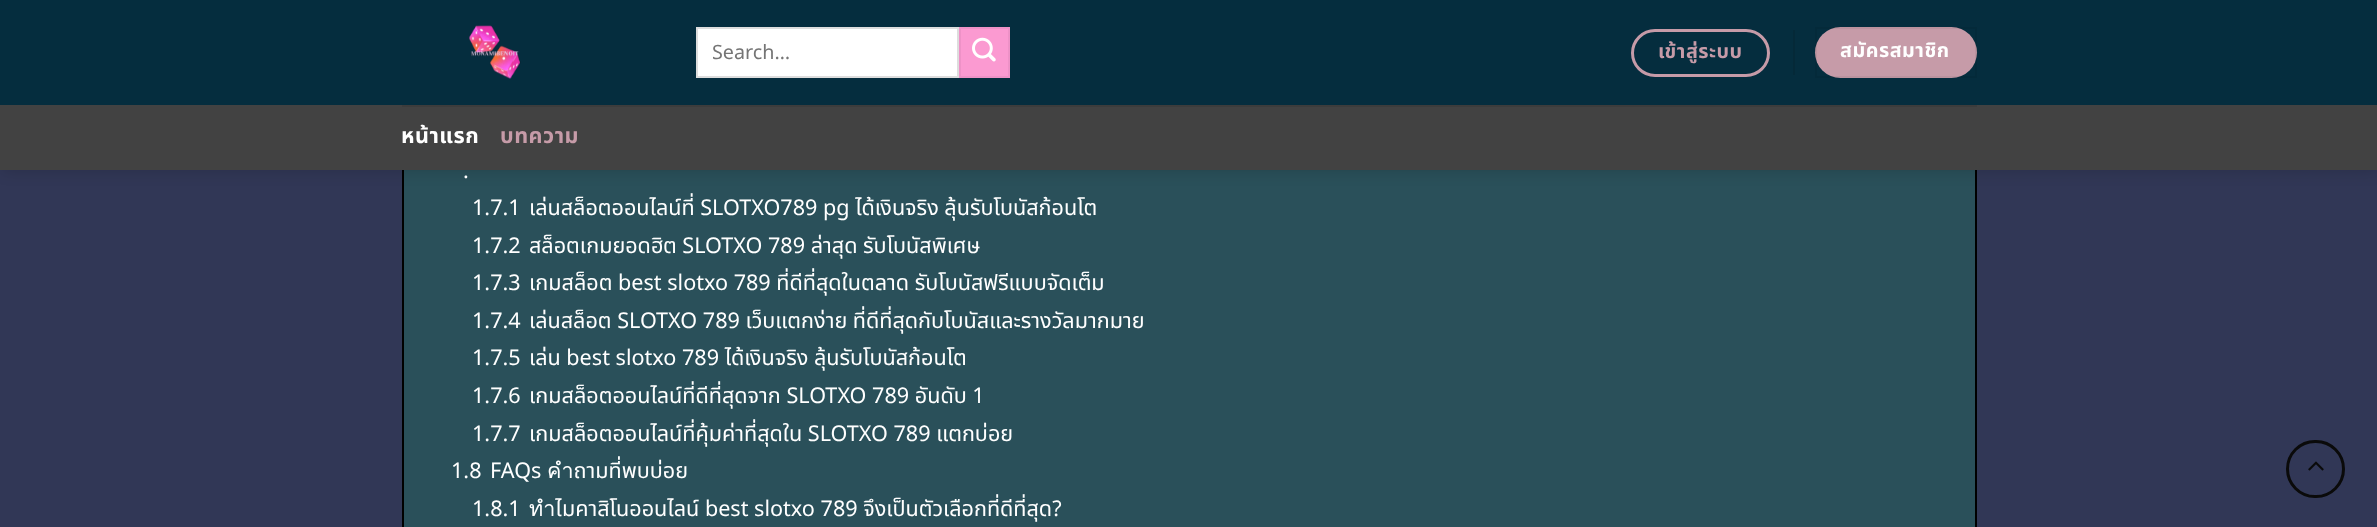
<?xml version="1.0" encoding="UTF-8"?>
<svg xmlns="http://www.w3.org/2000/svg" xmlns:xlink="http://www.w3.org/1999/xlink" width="2377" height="527">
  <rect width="100%" height="100%" fill="#313756" />
  <rect x="404" y="170" width="1571" height="357" fill="#2a505a" />
  <rect x="403" y="-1" width="1573" height="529" fill="none" stroke="#000000" stroke-width="2" />
  <rect x="2" y="2" width="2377" height="169" fill="#000000" fill-opacity="0.15" filter="blur(7.5px)" />
  <rect width="2377" height="105" fill="#052d3e" />
  <image x="469" y="25" width="52" height="54" xlink:href="image1.png" />
  <rect x="697" y="28" width="261" height="49" fill="#ffffff" stroke="#dddddd" stroke-width="2" />
  <rect x="960" y="28" width="49" height="49" fill="#fb9ad1" stroke="#ee92c7" stroke-width="2" />
  <image x="972" y="37" width="24" height="25" xlink:href="image2.png" />
  <rect x="1632.5" y="30.5" width="136" height="45" rx="22.5" fill="none" stroke="#c69ba8" stroke-width="3" />
  <rect x="1793" y="30" width="2" height="45" fill="#052938" />
  <rect x="1815" y="27" width="162" height="51" rx="25.5" fill="#c69ba8" />
  <rect x="1816" y="28" width="160" height="49" fill="none" stroke="#000000" stroke-opacity="0.05" stroke-width="2" />
  <rect y="105" width="2377" height="65" fill="#424242" />
  <rect x="402" y="105" width="1575" height="2" fill="#3c3c3c" />
  <rect x="2287.5" y="441.5" width="56" height="55" rx="27.5" fill="none" stroke="#0a0a0a" stroke-width="3" />
  <image x="2308" y="461" width="16" height="10" xlink:href="image3.png" />
  <text x="712" y="59" style="font-family: Noto Sans Thai; font-size: 19.75px; fill: #757575">Search…</text>
  <text x="1658" y="58" style="font-family: Noto Sans Thai; font-size: 19.75px; font-weight: bold; letter-spacing: 0.5px; fill: #c69ba8">เข้าสู่ระบบ</text>
  <text x="1840" y="57" style="font-family: Noto Sans Thai; font-size: 19.75px; font-weight: bold; letter-spacing: 0.5px; fill: #ffffff">สมัครสมาชิก</text>
  <text x="401" y="143" style="font-family: Noto Sans Thai; font-size: 21.6px; font-weight: bold; letter-spacing: 0.5px; fill: #ffffff">หน้าแรก</text>
  <text x="500" y="143" style="font-family: Noto Sans Thai; font-size: 21.6px; font-weight: bold; letter-spacing: 0.5px; fill: #c69ba8">บทความ</text>
  <text x="463" y="178" style="font-family: Noto Sans Thai; font-size: 21.6px; fill: #ffffff">.</text>
  <text x="472" y="215" style="font-family: Noto Sans Thai; font-size: 21.6px; fill: #ffffff">1.7.1</text>
  <text x="529" y="215" style="font-family: Noto Sans Thai; font-size: 21.6px; fill: #ffffff">เล่นสล็อตออนไลน์ที่ SLOTXO789 pg ได้เงินจริง ลุ้นรับโบนัสก้อนโต</text>
  <text x="472" y="253" style="font-family: Noto Sans Thai; font-size: 21.6px; fill: #ffffff">1.7.2</text>
  <text x="529" y="253" style="font-family: Noto Sans Thai; font-size: 21.6px; fill: #ffffff">สล็อตเกมยอดฮิต SLOTXO 789 ล่าสุด รับโบนัสพิเศษ</text>
  <text x="472" y="290" style="font-family: Noto Sans Thai; font-size: 21.6px; fill: #ffffff">1.7.3</text>
  <text x="529" y="290" style="font-family: Noto Sans Thai; font-size: 21.6px; fill: #ffffff">เกมสล็อต best slotxo 789 ที่ดีที่สุดในตลาด รับโบนัสฟรีแบบจัดเต็ม</text>
  <text x="472" y="328" style="font-family: Noto Sans Thai; font-size: 21.6px; fill: #ffffff">1.7.4</text>
  <text x="529" y="328" style="font-family: Noto Sans Thai; font-size: 21.6px; fill: #ffffff">เล่นสล็อต SLOTXO 789 เว็บแตกง่าย ที่ดีที่สุดกับโบนัสและรางวัลมากมาย</text>
  <text x="472" y="365" style="font-family: Noto Sans Thai; font-size: 21.6px; fill: #ffffff">1.7.5</text>
  <text x="529" y="365" style="font-family: Noto Sans Thai; font-size: 21.6px; fill: #ffffff">เล่น best slotxo 789 ได้เงินจริง ลุ้นรับโบนัสก้อนโต</text>
  <text x="472" y="403" style="font-family: Noto Sans Thai; font-size: 21.6px; fill: #ffffff">1.7.6</text>
  <text x="529" y="403" style="font-family: Noto Sans Thai; font-size: 21.6px; fill: #ffffff">เกมสล็อตออนไลน์ที่ดีที่สุดจาก SLOTXO 789 อันดับ 1</text>
  <text x="472" y="441" style="font-family: Noto Sans Thai; font-size: 21.6px; fill: #ffffff">1.7.7</text>
  <text x="529" y="441" style="font-family: Noto Sans Thai; font-size: 21.6px; fill: #ffffff">เกมสล็อตออนไลน์ที่คุ้มค่าที่สุดใน SLOTXO 789 แตกบ่อย</text>
  <text x="451" y="478" style="font-family: Noto Sans Thai; font-size: 21.6px; fill: #ffffff">1.8</text>
  <text x="490" y="478" style="font-family: Noto Sans Thai; font-size: 21.6px; fill: #ffffff">FAQs คำถามที่พบบ่อย</text>
  <text x="472" y="516" style="font-family: Noto Sans Thai; font-size: 21.6px; fill: #ffffff">1.8.1</text>
  <text x="529" y="516" style="font-family: Noto Sans Thai; font-size: 21.6px; fill: #ffffff">ทำไมคาสิโนออนไลน์ best slotxo 789 จึงเป็นตัวเลือกที่ดีที่สุด?</text>
</svg>
